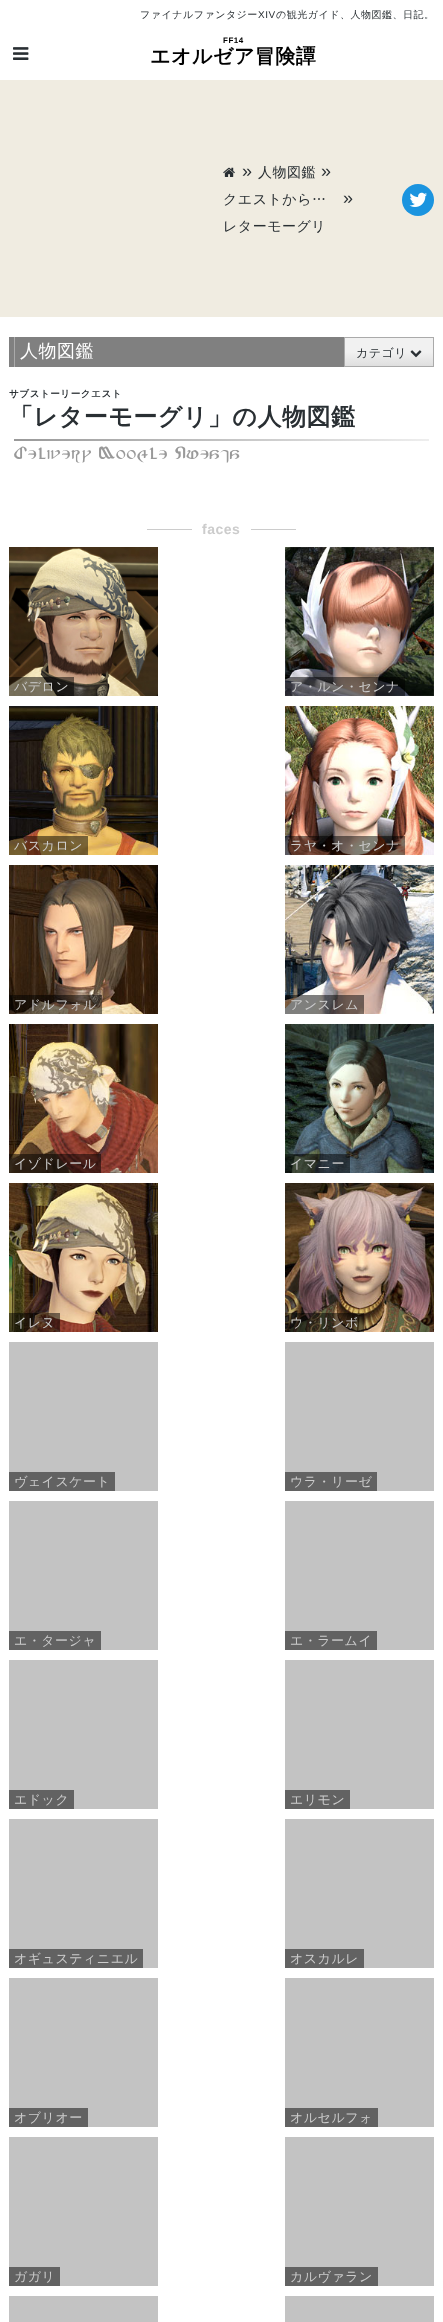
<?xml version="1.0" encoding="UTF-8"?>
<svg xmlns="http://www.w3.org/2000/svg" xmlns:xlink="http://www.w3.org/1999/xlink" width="443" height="2322">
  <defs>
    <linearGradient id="g1" gradientUnits="userSpaceOnUse" x1="345" y1="338" x2="345" y2="366"><stop offset="0" stop-color="#ffffff" /><stop offset="0.01" stop-color="#f1f1f1" /><stop offset="0.5" stop-color="#f1f1f1" /><stop offset="0.99" stop-color="#dfdfdf" /><stop offset="1" stop-color="#cccccc" /></linearGradient>
    <linearGradient id="g2" gradientUnits="userSpaceOnUse" x1="14" y1="439" x2="429" y2="441"><stop offset="0" stop-color="#999999" /><stop offset="1" stop-color="#eeeeee" /></linearGradient>
  </defs>
  <rect width="100%" height="100%" fill="#ffffff" />
  <image x="13" y="47" width="16" height="13" xlink:href="image1.png" />
  <rect y="80" width="443" height="237" fill="#f0ece1" />
  <image x="223" y="167" width="12" height="10" xlink:href="image2.png" />
  <circle cx="418" cy="200" r="16" fill="#1b94df" />
  <image x="409" y="192" width="18" height="15" xlink:href="image3.png" />
  <rect x="9" y="337" width="335" height="30" fill="#808080" />
  <rect x="14" y="337" width="1" height="30" fill="#aaaaaa" />
  <rect x="345" y="338" width="88" height="28" fill="url(#g1)" />
  <rect x="344.5" y="337.5" width="89" height="29" fill="none" stroke="#aaaaaa" />
  <image x="410" y="350" width="12" height="8" xlink:href="image4.png" />
  <rect x="14" y="439" width="415" height="2" fill="url(#g2)" />
  <rect x="147" y="529" width="45" height="1" fill="#cccccc" />
  <rect x="251" y="529" width="45" height="1" fill="#cccccc" />
  <image x="9" y="547" width="149" height="149" xlink:href="image5.png" />
  <rect x="9" y="677" width="65" height="19" fill="#000000" fill-opacity="0.5" />
  <image x="285" y="547" width="149" height="149" xlink:href="image6.png" />
  <rect x="285" y="677" width="120" height="19" fill="#000000" fill-opacity="0.5" />
  <image x="9" y="706" width="149" height="149" xlink:href="image7.png" />
  <rect x="9" y="836" width="79" height="19" fill="#000000" fill-opacity="0.5" />
  <image x="285" y="706" width="149" height="149" xlink:href="image8.png" />
  <rect x="285" y="836" width="120" height="19" fill="#000000" fill-opacity="0.5" />
  <image x="9" y="865" width="149" height="149" xlink:href="image9.png" />
  <rect x="9" y="995" width="93" height="19" fill="#000000" fill-opacity="0.5" />
  <image x="285" y="865" width="149" height="149" xlink:href="image10.png" />
  <rect x="285" y="995" width="79" height="19" fill="#000000" fill-opacity="0.5" />
  <image x="9" y="1024" width="149" height="149" xlink:href="image11.png" />
  <rect x="9" y="1154" width="92" height="19" fill="#000000" fill-opacity="0.5" />
  <image x="285" y="1024" width="149" height="149" xlink:href="image12.png" />
  <rect x="285" y="1154" width="65" height="19" fill="#000000" fill-opacity="0.5" />
  <image x="9" y="1183" width="149" height="149" xlink:href="image13.png" />
  <rect x="9" y="1313" width="51" height="19" fill="#000000" fill-opacity="0.5" />
  <image x="285" y="1183" width="149" height="149" xlink:href="image14.png" />
  <rect x="285" y="1313" width="79" height="19" fill="#000000" fill-opacity="0.5" />
  <rect x="9" y="1342" width="149" height="149" fill="#c3c3c3" />
  <rect x="9" y="1472" width="106" height="19" fill="#626262" />
  <rect x="285" y="1342" width="149" height="149" fill="#c3c3c3" />
  <rect x="285" y="1472" width="92" height="19" fill="#626262" />
  <rect x="9" y="1501" width="149" height="149" fill="#c3c3c3" />
  <rect x="9" y="1631" width="92" height="19" fill="#626262" />
  <rect x="285" y="1501" width="149" height="149" fill="#c3c3c3" />
  <rect x="285" y="1631" width="92" height="19" fill="#626262" />
  <rect x="9" y="1660" width="149" height="149" fill="#c3c3c3" />
  <rect x="9" y="1790" width="65" height="19" fill="#626262" />
  <rect x="285" y="1660" width="149" height="149" fill="#c3c3c3" />
  <rect x="285" y="1790" width="65" height="19" fill="#626262" />
  <rect x="9" y="1819" width="149" height="149" fill="#c3c3c3" />
  <rect x="9" y="1949" width="134" height="19" fill="#626262" />
  <rect x="285" y="1819" width="149" height="149" fill="#c3c3c3" />
  <rect x="285" y="1949" width="79" height="19" fill="#626262" />
  <rect x="9" y="1978" width="149" height="149" fill="#c3c3c3" />
  <rect x="9" y="2108" width="79" height="19" fill="#626262" />
  <rect x="285" y="1978" width="149" height="149" fill="#c3c3c3" />
  <rect x="285" y="2108" width="93" height="19" fill="#626262" />
  <rect x="9" y="2137" width="149" height="149" fill="#c3c3c3" />
  <rect x="9" y="2267" width="51" height="19" fill="#626262" />
  <rect x="285" y="2137" width="149" height="149" fill="#c3c3c3" />
  <rect x="285" y="2267" width="93" height="19" fill="#626262" />
  <rect x="9" y="2296" width="149" height="26" fill="#c3c3c3" />
  <rect x="285" y="2296" width="149" height="26" fill="#c3c3c3" />
  <text x="140" y="18" style="font-family: WenQuanYi Zen Hei; font-size: 10px; font-weight: 500; letter-spacing: 0.5px; fill: #292f33">ファイナルファンタジー</text>
  <text x="258" y="18" style="font-family: Liberation Sans; font-size: 10px; letter-spacing: 0.5px; fill: #292f33">XIV</text>
  <text x="276" y="18" style="font-family: WenQuanYi Zen Hei; font-size: 10px; font-weight: 500; letter-spacing: 0.5px; fill: #292f33">の観光ガイド、人物図鑑、日記。</text>
  <text x="223" y="43" style="font-family: Liberation Sans; font-size: 8px; font-weight: bold; letter-spacing: 0.5px; fill: #000000">FF14</text>
  <text x="150" y="63" style="font-family: WenQuanYi Zen Hei; font-size: 20px; font-weight: bold; letter-spacing: 0.5px; fill: #000000">エオルゼア冒険譚</text>
  <text x="242" y="177" style="font-family: Liberation Sans; font-size: 18px; letter-spacing: 0.5px; fill: #292f33">»</text>
  <text x="258" y="177" style="font-family: WenQuanYi Zen Hei; font-size: 14px; font-weight: 500; letter-spacing: 0.5px; fill: #292f33">人物図鑑</text>
  <text x="321" y="177" style="font-family: Liberation Sans; font-size: 18px; letter-spacing: 0.5px; fill: #292f33">»</text>
  <text x="223" y="204" style="font-family: WenQuanYi Zen Hei; font-size: 14px; font-weight: 500; letter-spacing: 0.5px; fill: #292f33">クエストから…</text>
  <text x="343" y="204" style="font-family: Liberation Sans; font-size: 18px; letter-spacing: 0.5px; fill: #292f33">»</text>
  <text x="223" y="231" style="font-family: WenQuanYi Zen Hei; font-size: 14px; font-weight: 500; letter-spacing: 0.5px; fill: #292f33">レターモーグリ</text>
  <text x="20" y="357" style="font-family: WenQuanYi Zen Hei; font-size: 18px; font-weight: 500; letter-spacing: 0.5px; fill: #ffffff">人物図鑑</text>
  <text x="356" y="357" style="font-family: WenQuanYi Zen Hei; font-size: 12px; font-weight: 500; letter-spacing: 0.5px; fill: #292f33">カテゴリ</text>
  <text x="9" y="397" style="font-family: WenQuanYi Zen Hei; font-size: 9.6px; font-weight: bold; letter-spacing: 0.5px; fill: #292f33">サブストーリークエスト</text>
  <text x="9" y="425" style="font-family: WenQuanYi Zen Hei; font-size: 24px; font-weight: bold; letter-spacing: 0.5px; fill: #292f33">「レターモーグリ」の人物図鑑</text>
  <text x="14" y="459" style="font-family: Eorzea; font-size: 18px; letter-spacing: 0.5px; fill: #999999">Delivery Moogle Quests</text>
  <text x="202" y="534" style="font-family: Liberation Sans; font-size: 14px; font-weight: bold; letter-spacing: 0.5px; fill: #cccccc">faces</text>
  <text x="14" y="691" style="font-family: WenQuanYi Zen Hei; font-size: 13px; font-weight: 500; letter-spacing: 0.5px; fill: #cccccc">バデロン</text>
  <text x="290" y="691" style="font-family: WenQuanYi Zen Hei; font-size: 13px; font-weight: 500; letter-spacing: 0.5px; fill: #cccccc">ア・ルン・センナ</text>
  <text x="14" y="850" style="font-family: WenQuanYi Zen Hei; font-size: 13px; font-weight: 500; letter-spacing: 0.5px; fill: #cccccc">バスカロン</text>
  <text x="290" y="850" style="font-family: WenQuanYi Zen Hei; font-size: 13px; font-weight: 500; letter-spacing: 0.5px; fill: #cccccc">ラヤ・オ・センナ</text>
  <text x="14" y="1009" style="font-family: WenQuanYi Zen Hei; font-size: 13px; font-weight: 500; letter-spacing: 0.5px; fill: #cccccc">アドルフォル</text>
  <text x="290" y="1009" style="font-family: WenQuanYi Zen Hei; font-size: 13px; font-weight: 500; letter-spacing: 0.5px; fill: #cccccc">アンスレム</text>
  <text x="14" y="1168" style="font-family: WenQuanYi Zen Hei; font-size: 13px; font-weight: 500; letter-spacing: 0.5px; fill: #cccccc">イゾドレール</text>
  <text x="290" y="1168" style="font-family: WenQuanYi Zen Hei; font-size: 13px; font-weight: 500; letter-spacing: 0.5px; fill: #cccccc">イマニー</text>
  <text x="14" y="1327" style="font-family: WenQuanYi Zen Hei; font-size: 13px; font-weight: 500; letter-spacing: 0.5px; fill: #cccccc">イレヌ</text>
  <text x="290" y="1327" style="font-family: WenQuanYi Zen Hei; font-size: 13px; font-weight: 500; letter-spacing: 0.5px; fill: #cccccc">ウ・リンボ</text>
  <text x="14" y="1486" style="font-family: WenQuanYi Zen Hei; font-size: 13px; font-weight: 500; letter-spacing: 0.5px; fill: #cccccc">ヴェイスケート</text>
  <text x="290" y="1486" style="font-family: WenQuanYi Zen Hei; font-size: 13px; font-weight: 500; letter-spacing: 0.5px; fill: #cccccc">ウラ・リーゼ</text>
  <text x="14" y="1645" style="font-family: WenQuanYi Zen Hei; font-size: 13px; font-weight: 500; letter-spacing: 0.5px; fill: #cccccc">エ・タージャ</text>
  <text x="290" y="1645" style="font-family: WenQuanYi Zen Hei; font-size: 13px; font-weight: 500; letter-spacing: 0.5px; fill: #cccccc">エ・ラームイ</text>
  <text x="14" y="1804" style="font-family: WenQuanYi Zen Hei; font-size: 13px; font-weight: 500; letter-spacing: 0.5px; fill: #cccccc">エドック</text>
  <text x="290" y="1804" style="font-family: WenQuanYi Zen Hei; font-size: 13px; font-weight: 500; letter-spacing: 0.5px; fill: #cccccc">エリモン</text>
  <text x="14" y="1963" style="font-family: WenQuanYi Zen Hei; font-size: 13px; font-weight: 500; letter-spacing: 0.5px; fill: #cccccc">オギュスティニエル</text>
  <text x="290" y="1963" style="font-family: WenQuanYi Zen Hei; font-size: 13px; font-weight: 500; letter-spacing: 0.5px; fill: #cccccc">オスカルレ</text>
  <text x="14" y="2122" style="font-family: WenQuanYi Zen Hei; font-size: 13px; font-weight: 500; letter-spacing: 0.5px; fill: #cccccc">オブリオー</text>
  <text x="290" y="2122" style="font-family: WenQuanYi Zen Hei; font-size: 13px; font-weight: 500; letter-spacing: 0.5px; fill: #cccccc">オルセルフォ</text>
  <text x="14" y="2281" style="font-family: WenQuanYi Zen Hei; font-size: 13px; font-weight: 500; letter-spacing: 0.5px; fill: #cccccc">ガガリ</text>
  <text x="290" y="2281" style="font-family: WenQuanYi Zen Hei; font-size: 13px; font-weight: 500; letter-spacing: 0.5px; fill: #cccccc">カルヴァラン</text>
</svg>
